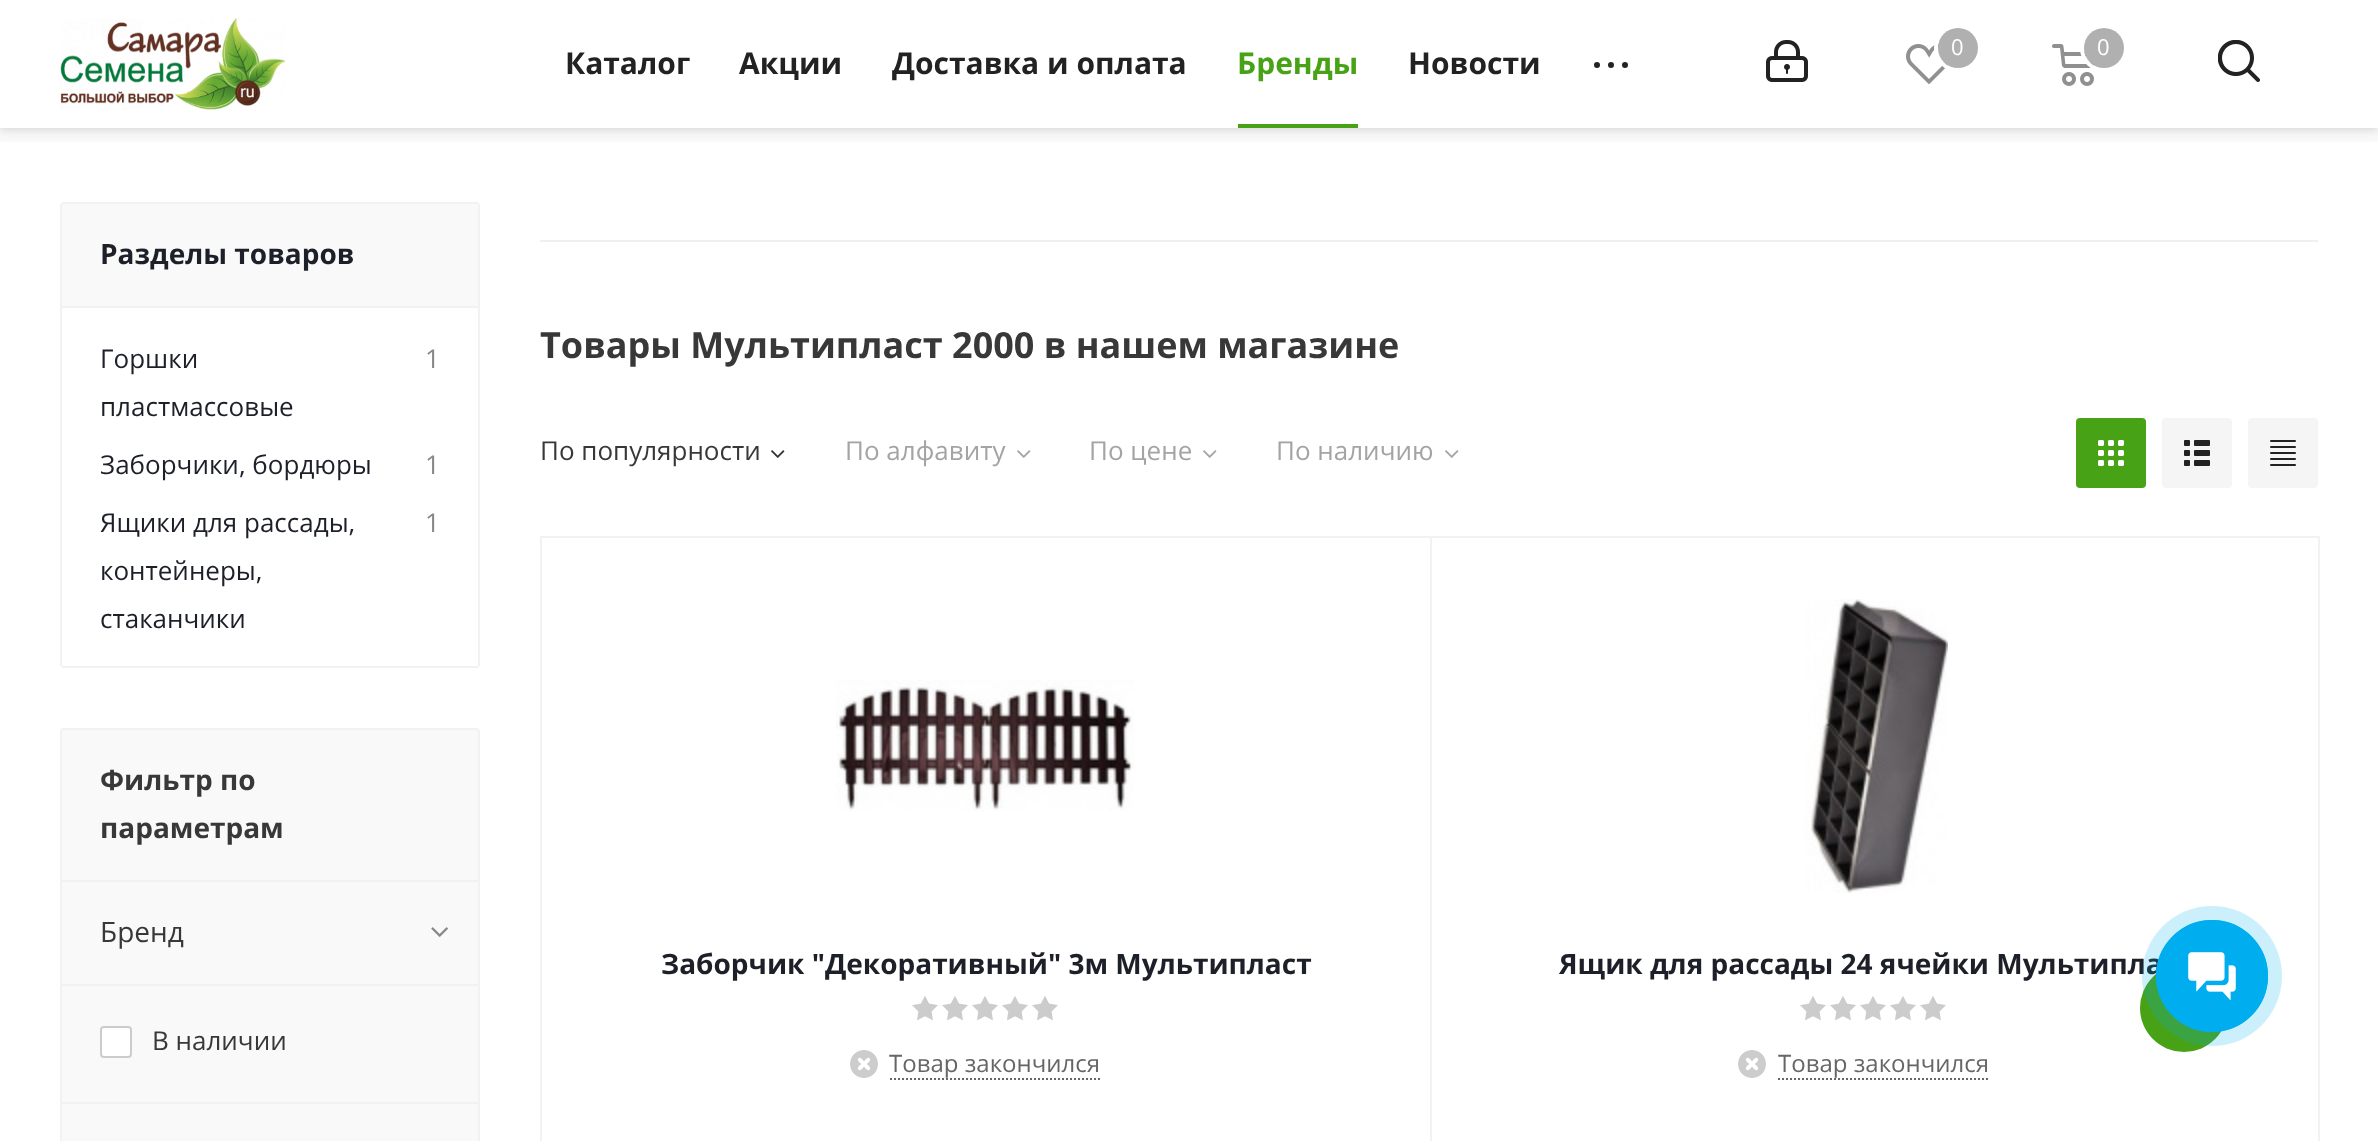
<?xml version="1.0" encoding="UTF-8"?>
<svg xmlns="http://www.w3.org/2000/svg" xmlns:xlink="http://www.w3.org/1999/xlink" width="2378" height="1141">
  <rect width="100%" height="100%" fill="#ffffff" />
  <rect y="128" width="2378" height="14" fill="#f9f9f9" />
  <rect y="2" width="2378" height="128" fill="#000000" fill-opacity="0.14" filter="blur(5px)" />
  <rect width="2378" height="128" fill="#ffffff" />
  <image x="60" y="18" width="226" height="92" xlink:href="image1.png" />
  <rect x="1238" y="124" width="120" height="4" fill="#48a216" />
  <rect x="1594" y="62" width="34" height="6" fill="#222222" />
  <image x="1594" y="62" width="34" height="6" xlink:href="image2.png" />
  <image x="1766" y="40" width="42" height="42" xlink:href="image3.png" />
  <image x="1906" y="44" width="43" height="40" xlink:href="image4.png" />
  <circle cx="1958" cy="48" r="22" fill="none" stroke="#ffffff" stroke-width="4" />
  <circle cx="1958" cy="48" r="20" fill="#b0b0b0" />
  <image x="2052" y="44" width="43" height="42" xlink:href="image5.png" />
  <circle cx="2104" cy="48" r="22" fill="none" stroke="#ffffff" stroke-width="4" />
  <circle cx="2104" cy="48" r="20" fill="#b0b0b0" />
  <rect x="2218" y="40" width="42" height="42" fill="#222222" />
  <image x="2218" y="40" width="42" height="42" xlink:href="image6.png" />
  <rect x="61" y="203" width="418" height="464" rx="3" fill="#f9f9f9" stroke="#f2f2f2" stroke-width="2" />
  <rect x="62" y="306" width="416" height="2" fill="#f2f2f2" />
  <rect x="62" y="308" width="416" height="358" fill="#ffffff" />
  <rect x="61" y="729" width="418" height="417" rx="3" fill="#f9f9f9" stroke="#f2f2f2" stroke-width="2" />
  <rect x="62" y="880" width="416" height="2" fill="#f2f2f2" />
  <rect x="62" y="984" width="416" height="2" fill="#f2f2f2" />
  <image x="431" y="927" width="17" height="10" xlink:href="image7.png" />
  <rect x="62" y="1102" width="416" height="2" fill="#f2f2f2" />
  <rect x="101" y="1027" width="30" height="30" rx="3" fill="#ffffff" stroke="#cccccc" stroke-width="2" />
  <rect x="540" y="240" width="1778" height="2" fill="#f0f0f0" />
  <image x="771" y="450" width="14" height="8" xlink:href="image8.png" />
  <image x="1017" y="450" width="14" height="8" xlink:href="image9.png" />
  <image x="1203" y="450" width="14" height="8" xlink:href="image9.png" />
  <image x="1445" y="450" width="14" height="8" xlink:href="image9.png" />
  <rect x="2076" y="418" width="70" height="70" rx="4" fill="#48a216" />
  <image x="2098" y="440" width="26" height="26" xlink:href="image10.png" />
  <rect x="2162" y="418" width="70" height="70" rx="4" fill="#f5f5f5" />
  <image x="2184" y="440" width="26" height="26" xlink:href="image11.png" />
  <rect x="2248" y="418" width="70" height="70" rx="4" fill="#f5f5f5" />
  <image x="2270" y="440" width="26" height="26" xlink:href="image12.png" />
  <rect x="541" y="537" width="890" height="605" fill="none" stroke="#f2f2f2" stroke-width="2" />
  <image x="836" y="680" width="298" height="131" xlink:href="image13.png" />
  <image x="912" y="996" width="26" height="25" xlink:href="image14.png" />
  <image x="942" y="996" width="26" height="25" xlink:href="image14.png" />
  <image x="972" y="996" width="26" height="25" xlink:href="image14.png" />
  <image x="1002" y="996" width="26" height="25" xlink:href="image14.png" />
  <image x="1032" y="996" width="26" height="25" xlink:href="image14.png" />
  <image x="850" y="1050" width="28" height="28" xlink:href="image15.png" />
  <path d="M 890 1079 h 210" fill="none" stroke="#666666" stroke-width="2" stroke-dasharray="2 2" />
  <rect x="1431" y="537" width="888" height="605" fill="none" stroke="#f2f2f2" stroke-width="2" />
  <image x="1804" y="599" width="144" height="294" xlink:href="image16.png" />
  <image x="1800" y="996" width="26" height="25" xlink:href="image14.png" />
  <image x="1830" y="996" width="26" height="25" xlink:href="image14.png" />
  <image x="1860" y="996" width="26" height="25" xlink:href="image14.png" />
  <image x="1890" y="996" width="26" height="25" xlink:href="image14.png" />
  <image x="1920" y="996" width="26" height="25" xlink:href="image14.png" />
  <image x="1738" y="1050" width="28" height="28" xlink:href="image15.png" />
  <path d="M 1778 1079 h 212" fill="none" stroke="#666666" stroke-width="2" stroke-dasharray="2 2" />
  <text x="565" y="74" style="font-family: Open Sans; font-size: 30px; font-weight: bold; fill: #222222">Каталог</text>
  <text x="739" y="74" style="font-family: Open Sans; font-size: 30px; font-weight: bold; fill: #222222">Акции</text>
  <text x="892" y="74" style="font-family: Open Sans; font-size: 30px; font-weight: bold; fill: #222222">Доставка и оплата</text>
  <text x="1237" y="74" style="font-family: Open Sans; font-size: 30px; font-weight: bold; fill: #48a216">Бренды</text>
  <text x="1408" y="74" style="font-family: Open Sans; font-size: 30px; font-weight: bold; fill: #222222">Новости</text>
  <text x="1951" y="55" style="font-family: Open Sans; font-size: 22px; fill: #ffffff">0</text>
  <text x="2097" y="55" style="font-family: Open Sans; font-size: 22px; fill: #ffffff">0</text>
  <text x="100" y="264" style="font-family: Open Sans; font-size: 28px; font-weight: bold; fill: #1d2029">Разделы товаров</text>
  <text x="100" y="368" style="font-family: Open Sans; font-size: 26px; fill: #1d2029">Горшки</text>
  <text x="100" y="416" style="font-family: Open Sans; font-size: 26px; fill: #1d2029">пластмассовые</text>
  <text x="425" y="368" style="font-family: Open Sans; font-size: 26px; fill: #888888">1</text>
  <text x="100" y="474" style="font-family: Open Sans; font-size: 26px; fill: #1d2029">Заборчики, бордюры</text>
  <text x="425" y="474" style="font-family: Open Sans; font-size: 26px; fill: #888888">1</text>
  <text x="100" y="532" style="font-family: Open Sans; font-size: 26px; fill: #1d2029">Ящики для рассады,</text>
  <text x="100" y="580" style="font-family: Open Sans; font-size: 26px; fill: #1d2029">контейнеры,</text>
  <text x="100" y="628" style="font-family: Open Sans; font-size: 26px; fill: #1d2029">стаканчики</text>
  <text x="425" y="532" style="font-family: Open Sans; font-size: 26px; fill: #888888">1</text>
  <text x="100" y="790" style="font-family: Open Sans; font-size: 28px; font-weight: bold; fill: #383838">Фильтр по</text>
  <text x="100" y="838" style="font-family: Open Sans; font-size: 28px; font-weight: bold; fill: #383838">параметрам</text>
  <text x="100" y="942" style="font-family: Open Sans; font-size: 28px; fill: #383838">Бренд</text>
  <text x="152" y="1050" style="font-family: Open Sans; font-size: 26px; fill: #383838">В наличии</text>
  <text x="540" y="358" style="font-family: Open Sans; font-size: 36px; font-weight: bold; fill: #383838">Товары Мультипласт 2000 в нашем магазине</text>
  <text x="540" y="460" style="font-family: Open Sans; font-size: 26px; fill: #383838">По популярности</text>
  <text x="845" y="460" style="font-family: Open Sans; font-size: 26px; fill: #a5a3a3">По алфавиту</text>
  <text x="1089" y="460" style="font-family: Open Sans; font-size: 26px; fill: #a5a3a3">По цене</text>
  <text x="1276" y="460" style="font-family: Open Sans; font-size: 26px; fill: #a5a3a3">По наличию</text>
  <text x="661" y="974" style="font-family: Open Sans; font-size: 28px; font-weight: bold; fill: #1d2029">Заборчик "Декоративный" 3м Мультипласт</text>
  <text x="889" y="1072" style="font-family: Open Sans; font-size: 24px; fill: #666666">Товар закончился</text>
  <text x="1559" y="974" style="font-family: Open Sans; font-size: 28px; font-weight: bold; fill: #1d2029">Ящик для рассады 24 ячейки Мультипла</text>
  <text x="1778" y="1072" style="font-family: Open Sans; font-size: 24px; fill: #666666">Товар закончился</text>
  <circle cx="2184" cy="1008" r="44" fill="#48a216" />
  <path d="M 2184 994 v 28" fill="none" stroke="#ffffff" stroke-width="4" stroke-linecap="round" stroke-linejoin="round" />
  <circle cx="2212" cy="976" r="70" fill="#00aeef" fill-opacity="0.2" />
  <circle cx="2212" cy="976" r="55" fill="none" stroke="#00aeef" stroke-width="2" />
  <circle cx="2212" cy="976" r="56" fill="#00aeef" />
  <image x="2188" y="952" width="48" height="48" xlink:href="image17.png" />
</svg>
